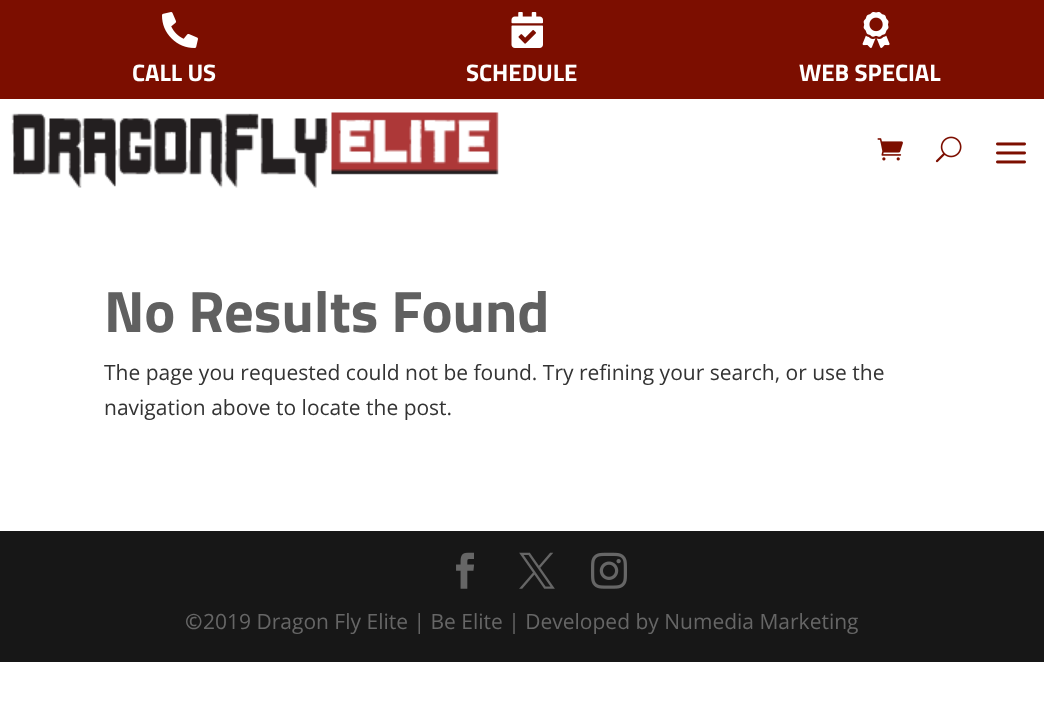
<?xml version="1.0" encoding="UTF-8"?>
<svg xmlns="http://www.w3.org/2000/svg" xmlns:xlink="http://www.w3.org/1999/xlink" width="1044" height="702">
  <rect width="100%" height="100%" fill="#ffffff" />
  <rect width="1044" height="99" fill="#7c0e00" />
  <image x="162" y="12" width="36" height="36" xlink:href="image1.png" />
  <image x="511" y="12" width="32" height="36" xlink:href="image2.png" />
  <image x="862" y="12" width="28" height="36" xlink:href="image3.png" />
  <image x="11" y="112" width="488" height="76" xlink:href="image4.png" />
  <image x="877" y="138" width="26" height="23" xlink:href="image5.png" />
  <image x="935" y="136" width="27" height="27" xlink:href="image6.png" />
  <image x="996" y="142" width="30" height="22" xlink:href="image7.png" />
  <rect y="531" width="1044" height="131" fill="#171717" />
  <image x="456" y="552" width="18" height="37" xlink:href="image8.png" />
  <image x="519" y="552" width="36" height="37" xlink:href="image9.png" />
  <image x="591" y="552" width="36" height="37" xlink:href="image10.png" />
  <text x="132" y="81" style="font-family: Titillium Web; font-size: 24px; font-weight: bold; fill: #ffffff">CALL US</text>
  <text x="466" y="81" style="font-family: Titillium Web; font-size: 24px; font-weight: bold; fill: #ffffff">SCHEDULE</text>
  <text x="799" y="81" style="font-family: Titillium Web; font-size: 24px; font-weight: bold; fill: #ffffff">WEB SPECIAL</text>
  <text x="104" y="332" style="font-family: Titillium Web; font-size: 58.5px; font-weight: bold; fill: #606060">No Results Found</text>
  <text x="104" y="380" style="font-family: Open Sans; font-size: 21px; fill: #333333">The page you requested could not be found. Try refining your search, or use the</text>
  <text x="104" y="415" style="font-family: Open Sans; font-size: 21px; fill: #333333">navigation above to locate the post.</text>
  <text x="185" y="629" style="font-family: Open Sans; font-size: 21px; font-weight: bold; fill: #666666">©</text>
  <text x="203" y="629" style="font-family: Open Sans; font-size: 21px; fill: #666666">2019 Dragon Fly Elite | Be Elite | Developed by Numedia Marketing</text>
</svg>
